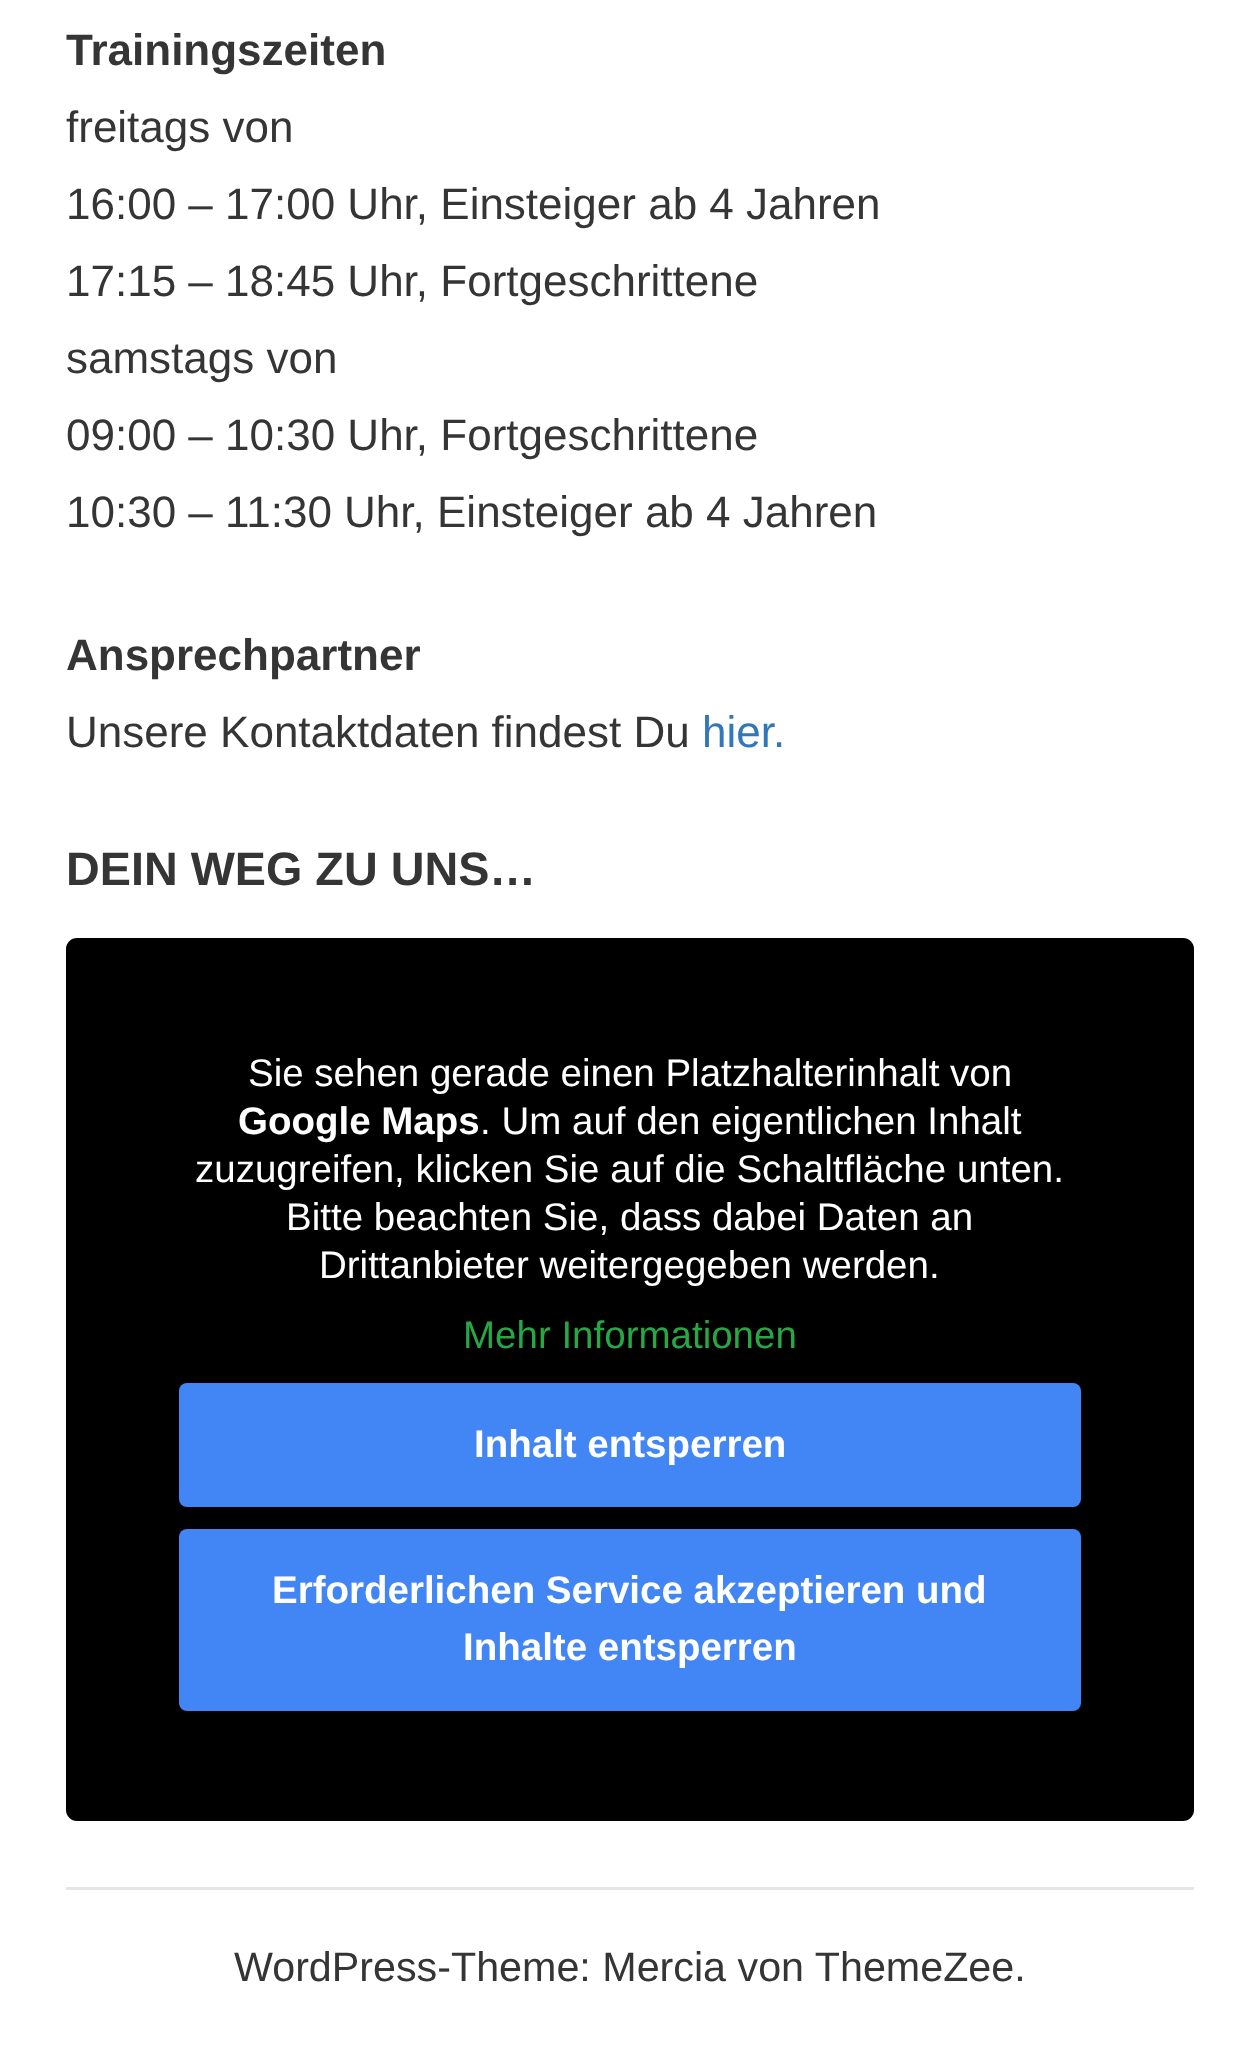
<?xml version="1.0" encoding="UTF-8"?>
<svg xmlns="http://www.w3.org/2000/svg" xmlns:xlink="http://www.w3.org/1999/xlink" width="1257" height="2045">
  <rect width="100%" height="100%" fill="#ffffff" />
  <rect x="66" y="938" width="1128" height="883" rx="11" fill="#000000" />
  <rect x="179" y="1383" width="902" height="124" rx="8" fill="#4285f4" />
  <rect x="179" y="1529" width="902" height="182" rx="8" fill="#4285f4" />
  <rect x="66" y="1887" width="1128" height="3" fill="#e6e6e6" />
  <text x="66" y="65" style="font-family: Liberation Sans; font-size: 44px; font-weight: bold; fill: #353535">Trainingszeiten</text>
  <text x="66" y="142" style="font-family: Liberation Sans; font-size: 44px; fill: #353535">freitags von</text>
  <text x="66" y="219" style="font-family: Liberation Sans; font-size: 44px; fill: #353535">16:00 – 17:00 Uhr, Einsteiger ab 4 Jahren</text>
  <text x="66" y="296" style="font-family: Liberation Sans; font-size: 44px; fill: #353535">17:15 – 18:45 Uhr, Fortgeschrittene</text>
  <text x="66" y="373" style="font-family: Liberation Sans; font-size: 44px; fill: #353535">samstags von</text>
  <text x="66" y="450" style="font-family: Liberation Sans; font-size: 44px; fill: #353535">09:00 – 10:30 Uhr, Fortgeschrittene</text>
  <text x="66" y="527" style="font-family: Liberation Sans; font-size: 44px; fill: #353535">10:30 – 11:30 Uhr, Einsteiger ab 4 Jahren</text>
  <text x="66" y="670" style="font-family: Liberation Sans; font-size: 44px; font-weight: bold; fill: #353535">Ansprechpartner</text>
  <text x="66" y="747" style="font-family: Liberation Sans; font-size: 44px; fill: #353535">Unsere Kontaktdaten findest Du</text>
  <text x="702" y="747" style="font-family: Liberation Sans; font-size: 44px; fill: #3377bb">hier.</text>
  <text x="66" y="885" style="font-family: Liberation Sans; font-size: 46.75px; font-weight: bold; fill: #353535">DEIN WEG ZU UNS…</text>
  <text x="248" y="1086" style="font-family: Liberation Sans; font-size: 38.5px; fill: #ffffff">Sie sehen gerade einen Platzhalterinhalt von</text>
  <text x="238" y="1134" style="font-family: Liberation Sans; font-size: 38.5px; font-weight: bold; fill: #ffffff">Google Maps</text>
  <text x="480" y="1134" style="font-family: Liberation Sans; font-size: 38.5px; fill: #ffffff">. Um auf den eigentlichen Inhalt</text>
  <text x="195" y="1182" style="font-family: Liberation Sans; font-size: 38.5px; fill: #ffffff">zuzugreifen, klicken Sie auf die Schaltfläche unten.</text>
  <text x="286" y="1230" style="font-family: Liberation Sans; font-size: 38.5px; fill: #ffffff">Bitte beachten Sie, dass dabei Daten an</text>
  <text x="319" y="1278" style="font-family: Liberation Sans; font-size: 38.5px; fill: #ffffff">Drittanbieter weitergegeben werden.</text>
  <text x="463" y="1348" style="font-family: Liberation Sans; font-size: 38.5px; fill: #28a745">Mehr Informationen</text>
  <text x="474" y="1457" style="font-family: Liberation Sans; font-size: 38.5px; font-weight: bold; fill: #ffffff">Inhalt entsperren</text>
  <text x="272" y="1603" style="font-family: Liberation Sans; font-size: 38.5px; font-weight: bold; fill: #ffffff">Erforderlichen Service akzeptieren und</text>
  <text x="463" y="1660" style="font-family: Liberation Sans; font-size: 38.5px; font-weight: bold; fill: #ffffff">Inhalte entsperren</text>
  <text x="234" y="1981" style="font-family: Liberation Sans; font-size: 41.25px; fill: #353535">WordPress-Theme: Mercia von ThemeZee.</text>
</svg>
